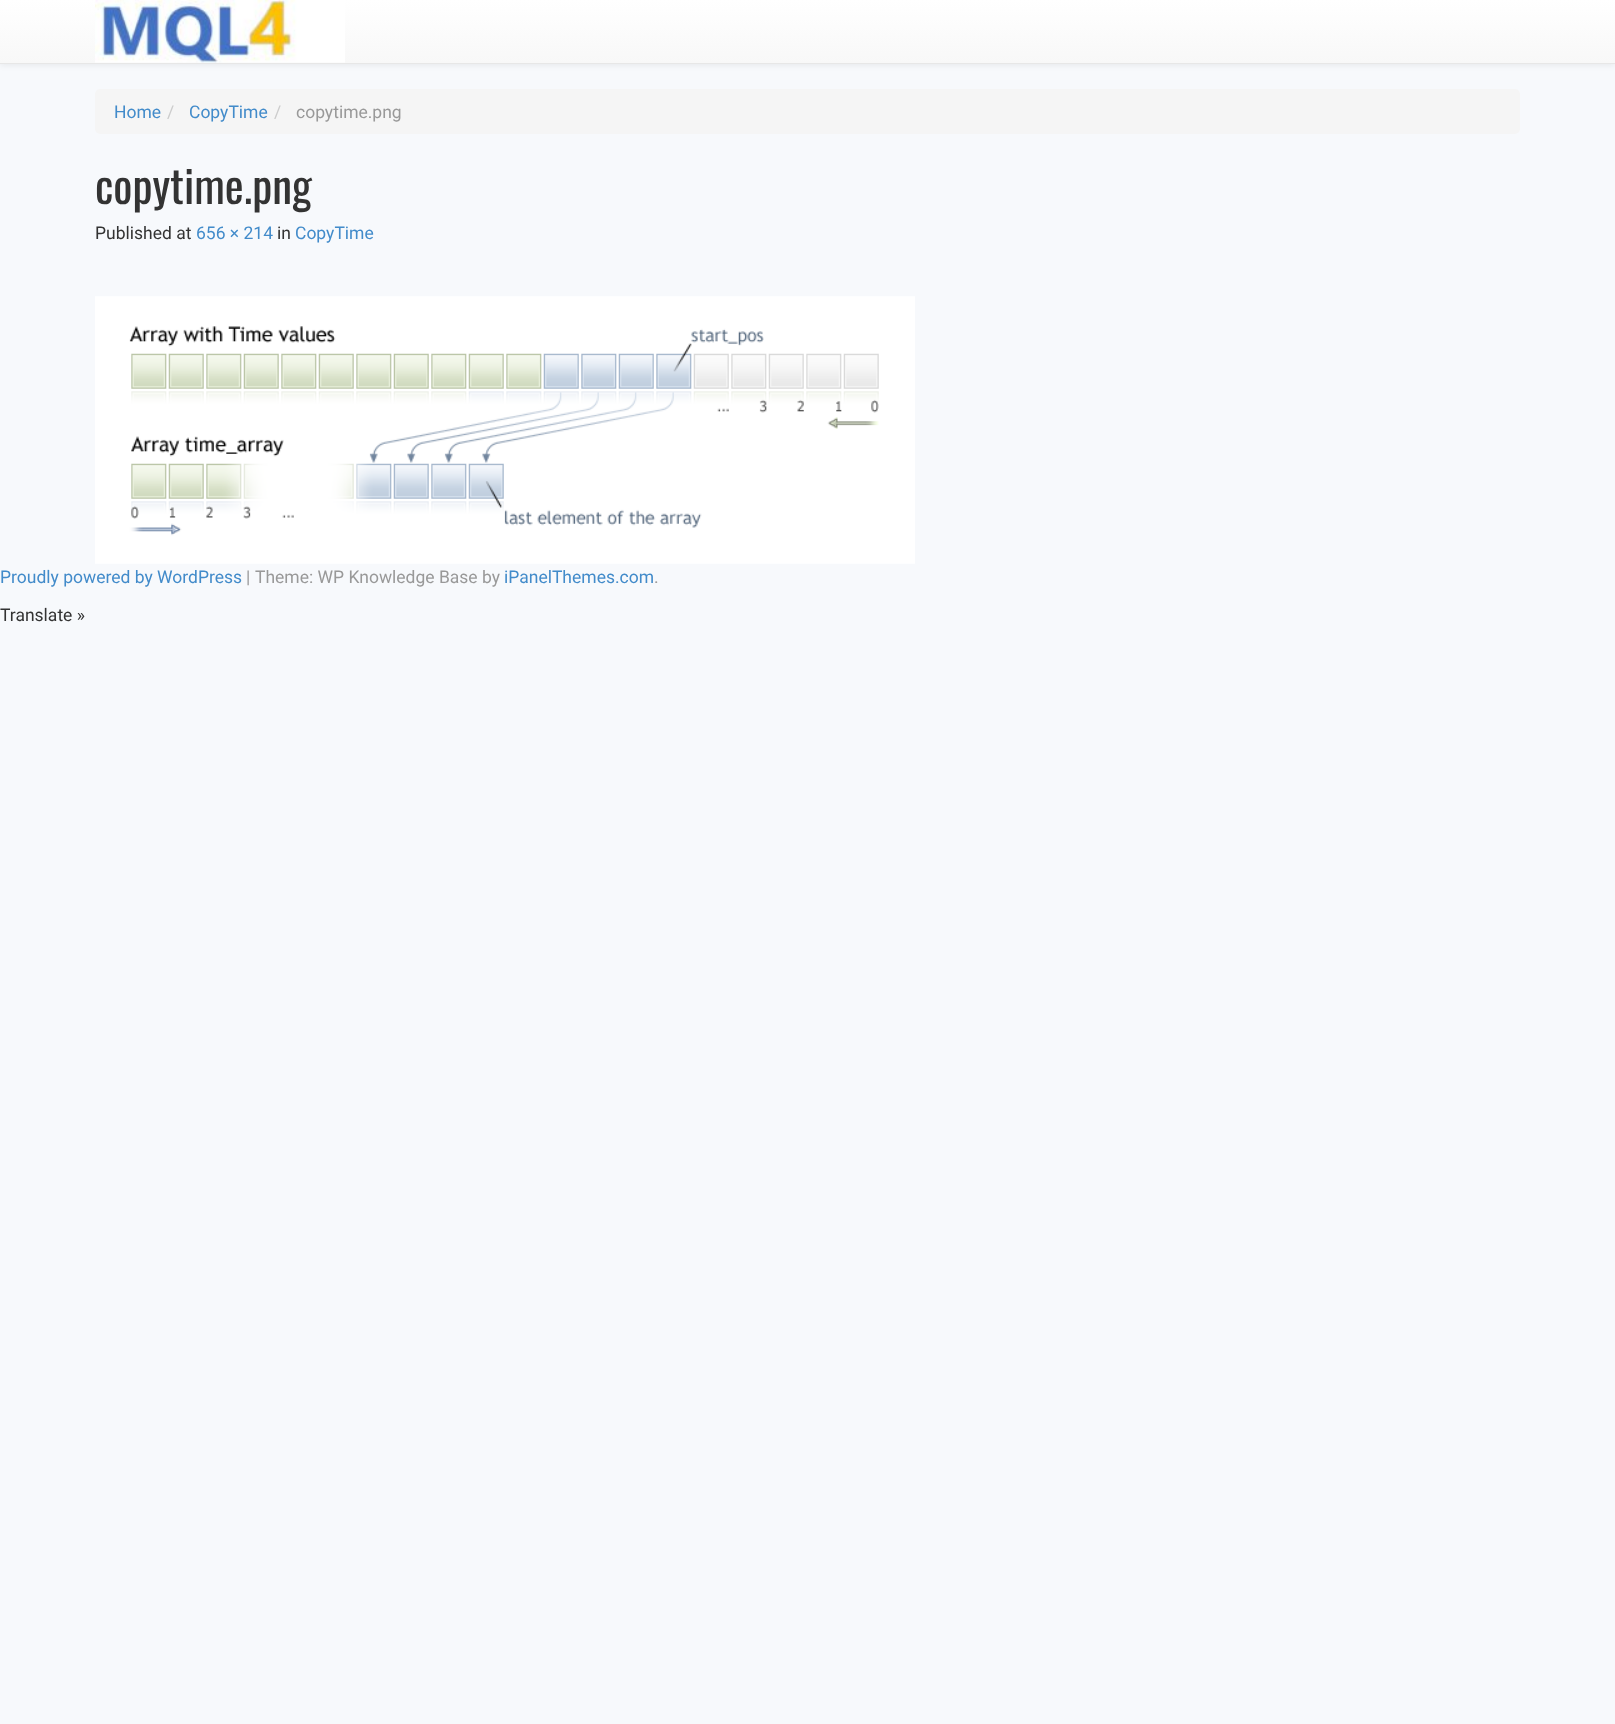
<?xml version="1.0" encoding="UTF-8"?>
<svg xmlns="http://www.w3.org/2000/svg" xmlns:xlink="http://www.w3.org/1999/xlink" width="1615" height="1724">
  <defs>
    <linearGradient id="g1" gradientUnits="userSpaceOnUse" x1="808" y1="0" x2="808" y2="63"><stop offset="0" stop-color="#ffffff" /><stop offset="1" stop-color="#f8f8f8" /></linearGradient>
  </defs>
  <rect width="100%" height="100%" fill="#f7f9fc" />
  <rect y="1" width="1615" height="64" fill="#000000" fill-opacity="0.07" filter="blur(3px)" />
  <rect width="1615" height="63" fill="url(#g1)" />
  <rect y="63" width="1615" height="1" fill="#e7e7e7" />
  <image x="95" y="0" width="250" height="63" xlink:href="image1.png" />
  <rect x="95" y="89" width="1425" height="45" rx="5" fill="#f5f5f5" />
  <image x="95" y="296" width="820" height="268" xlink:href="image2.png" />
  <text x="114" y="118" style="font-family: Roboto; font-size: 17.5px; fill: #428bca">Home</text>
  <text x="167" y="118" style="font-family: Roboto; font-size: 17.5px; fill: #cccccc">/</text>
  <text x="189" y="118" style="font-family: Roboto; font-size: 17.5px; fill: #428bca">CopyTime</text>
  <text x="274" y="118" style="font-family: Roboto; font-size: 17.5px; fill: #cccccc">/</text>
  <text x="296" y="118" style="font-family: Roboto; font-size: 17.5px; fill: #999999">copytime.png</text>
  <text x="95" y="204" style="font-family: Oswald; font-size: 45px; fill: #333333">copytime.png</text>
  <text x="95" y="239" style="font-family: Roboto; font-size: 17.5px; fill: #333333">Published at</text>
  <text x="196" y="239" style="font-family: Roboto; font-size: 17.5px; fill: #428bca">656 × 214</text>
  <text x="277" y="239" style="font-family: Roboto; font-size: 17.5px; fill: #333333">in</text>
  <text x="295" y="239" style="font-family: Roboto; font-size: 17.5px; fill: #428bca">CopyTime</text>
  <text x="0" y="583" style="font-family: Roboto; font-size: 17.5px; fill: #428bca">Proudly powered by WordPress</text>
  <text x="246" y="583" style="font-family: Roboto; font-size: 17.5px; fill: #999999">|</text>
  <text x="255" y="583" style="font-family: Roboto; font-size: 17.5px; fill: #999999">Theme: WP Knowledge Base by</text>
  <text x="504" y="583" style="font-family: Roboto; font-size: 17.5px; fill: #428bca">iPanelThemes.com</text>
  <text x="654" y="583" style="font-family: Roboto; font-size: 17.5px; fill: #999999">.</text>
  <text x="0" y="621" style="font-family: Roboto; font-size: 17.5px; fill: #333333">Translate »</text>
</svg>
